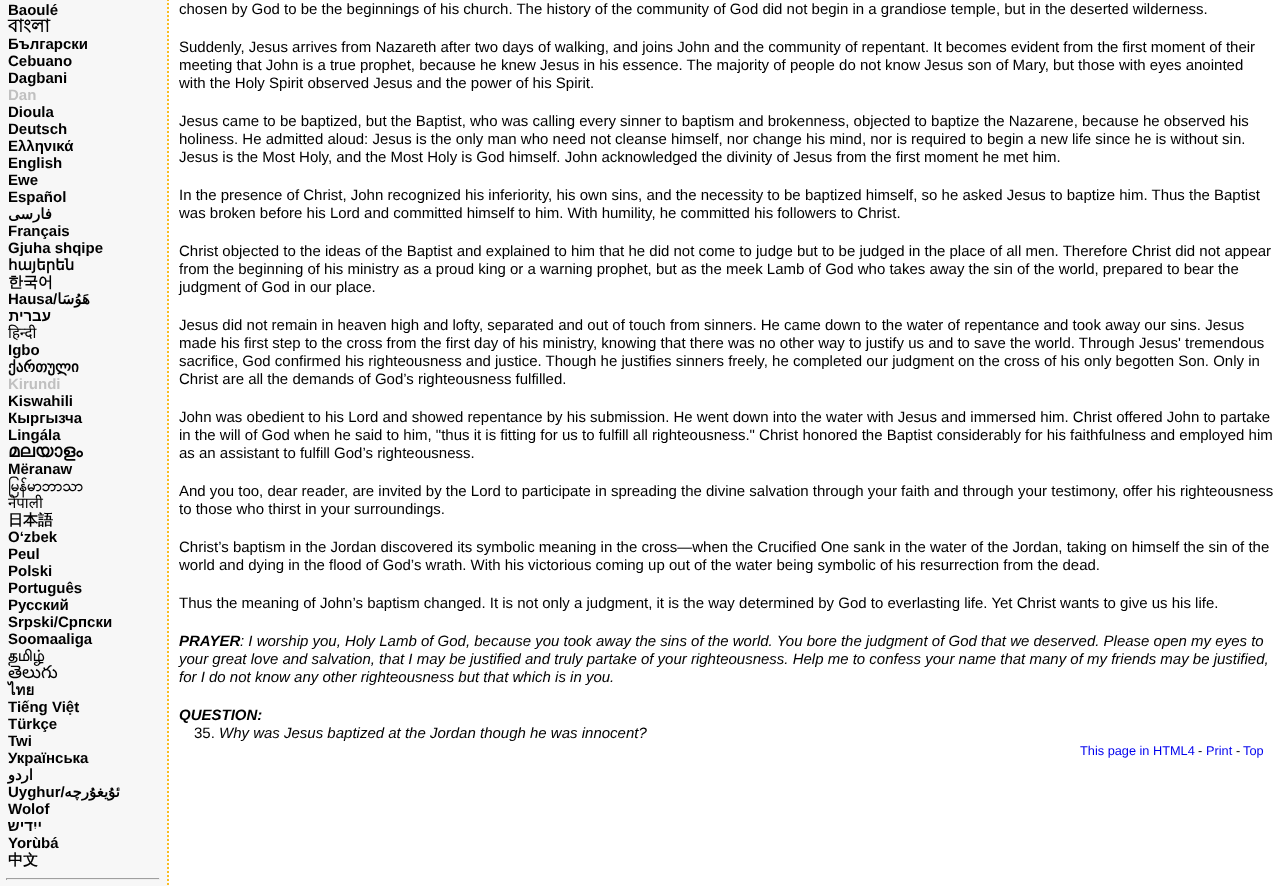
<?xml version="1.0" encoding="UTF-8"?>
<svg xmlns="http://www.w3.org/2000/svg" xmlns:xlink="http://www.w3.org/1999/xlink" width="1277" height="886">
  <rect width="100%" height="100%" fill="#f7f7f7" />
  <path d="M 168 -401 v 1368" fill="none" stroke="#fabd23" stroke-width="2" stroke-dasharray="2 2" />
  <rect x="6" y="878" width="154" height="1" fill="#9f9f9f" />
  <rect x="159" y="878" width="1" height="2" fill="#eeeeee" />
  <rect x="6" y="879" width="154" height="1" fill="#eeeeee" />
  <rect x="6" y="878" width="1" height="2" fill="#9f9f9f" />
  <rect x="169" width="1108" height="886" fill="#ffffff" />
  <text x="8" y="15" style="font-family: Liberation Sans; font-size: 15px; font-weight: bold; fill: #000000">Baoulé</text>
  <text x="8" y="32" style="font-family: Lohit Bengali; font-size: 18px; font-weight: bold; fill: #000000">বাংলা</text>
  <text x="8" y="49" style="font-family: Liberation Sans; font-size: 15px; font-weight: bold; fill: #000000">Български</text>
  <text x="8" y="66" style="font-family: Liberation Sans; font-size: 15px; font-weight: bold; fill: #000000">Cebuano</text>
  <text x="8" y="83" style="font-family: Liberation Sans; font-size: 15px; font-weight: bold; fill: #000000">Dagbani</text>
  <text x="8" y="100" style="font-family: Liberation Sans; font-size: 15px; font-weight: bold; fill: #c0c0c0">Dan</text>
  <text x="8" y="117" style="font-family: Liberation Sans; font-size: 15px; font-weight: bold; fill: #000000">Dioula</text>
  <text x="8" y="134" style="font-family: Liberation Sans; font-size: 15px; font-weight: bold; fill: #000000">Deutsch</text>
  <text x="8" y="151" style="font-family: Liberation Sans; font-size: 15px; font-weight: bold; fill: #000000">Ελληνικά</text>
  <text x="8" y="168" style="font-family: Liberation Sans; font-size: 15px; font-weight: bold; fill: #000000">English</text>
  <text x="8" y="185" style="font-family: Liberation Sans; font-size: 15px; font-weight: bold; fill: #000000">Ewe</text>
  <text x="8" y="202" style="font-family: Liberation Sans; font-size: 15px; font-weight: bold; fill: #000000">Español</text>
  <text x="52" y="219" style="font-family: DejaVu Sans; font-size: 15px; font-weight: bold; direction: rtl; fill: #000000">فارسی</text>
  <text x="8" y="236" style="font-family: Liberation Sans; font-size: 15px; font-weight: bold; fill: #000000">Français</text>
  <text x="8" y="253" style="font-family: Liberation Sans; font-size: 15px; font-weight: bold; fill: #000000">Gjuha shqipe</text>
  <text x="8" y="270" style="font-family: DejaVu Sans; font-size: 15px; font-weight: bold; fill: #000000">հայերեն</text>
  <text x="8" y="287" style="font-family: WenQuanYi Zen Hei; font-size: 15px; font-weight: bold; fill: #000000">한국어</text>
  <text x="8" y="304" style="font-family: Liberation Sans; font-size: 15px; font-weight: bold; fill: #000000">Hausa/</text>
  <text x="90" y="304" style="font-family: DejaVu Sans; font-size: 15px; font-weight: bold; direction: rtl; fill: #000000">هَوُسَا</text>
  <text x="51" y="321" style="font-family: Liberation Sans; font-size: 15px; font-weight: bold; direction: rtl; fill: #000000">עברית</text>
  <text x="8" y="338" style="font-family: Noto Sans; font-size: 15px; fill: #000000">हिन्दी</text>
  <text x="8" y="355" style="font-family: Liberation Sans; font-size: 15px; font-weight: bold; fill: #000000">Igbo</text>
  <text x="8" y="372" style="font-family: DejaVu Sans; font-size: 15px; font-weight: bold; fill: #000000">ქართული</text>
  <text x="8" y="389" style="font-family: Liberation Sans; font-size: 15px; font-weight: bold; fill: #c0c0c0">Kirundi</text>
  <text x="8" y="406" style="font-family: Liberation Sans; font-size: 15px; font-weight: bold; fill: #000000">Kiswahili</text>
  <text x="8" y="423" style="font-family: Liberation Sans; font-size: 15px; font-weight: bold; fill: #000000">Кыргызча</text>
  <text x="8" y="440" style="font-family: Liberation Sans; font-size: 15px; font-weight: bold; fill: #000000">Lingála</text>
  <text x="8" y="457" style="font-family: FreeSans; font-size: 18px; font-weight: bold; fill: #000000">മലയാളം</text>
  <text x="8" y="474" style="font-family: Liberation Sans; font-size: 15px; font-weight: bold; fill: #000000">Mëranaw</text>
  <text x="8" y="491" style="font-family: Padauk; font-size: 15px; font-weight: bold; fill: #000000">မြန်မာဘာသာ</text>
  <text x="8" y="508" style="font-family: Noto Sans; font-size: 15px; fill: #000000">नेपाली</text>
  <text x="8" y="525" style="font-family: WenQuanYi Zen Hei; font-size: 15px; font-weight: bold; fill: #000000">日本語</text>
  <text x="8" y="542" style="font-family: Liberation Sans; font-size: 15px; font-weight: bold; fill: #000000">O‘zbek</text>
  <text x="8" y="559" style="font-family: Liberation Sans; font-size: 15px; font-weight: bold; fill: #000000">Peul</text>
  <text x="8" y="576" style="font-family: Liberation Sans; font-size: 15px; font-weight: bold; fill: #000000">Polski</text>
  <text x="8" y="593" style="font-family: Liberation Sans; font-size: 15px; font-weight: bold; fill: #000000">Português</text>
  <text x="8" y="610" style="font-family: Liberation Sans; font-size: 15px; font-weight: bold; fill: #000000">Русский</text>
  <text x="8" y="627" style="font-family: Liberation Sans; font-size: 15px; font-weight: bold; fill: #000000">Srpski/Српски</text>
  <text x="8" y="644" style="font-family: Liberation Sans; font-size: 15px; font-weight: bold; fill: #000000">Soomaaliga</text>
  <text x="8" y="661" style="font-family: Lohit Tamil; font-size: 15px; font-weight: bold; fill: #000000">தமிழ்</text>
  <text x="8" y="678" style="font-family: Noto Sans Telugu; font-size: 18px; fill: #000000">తెలుగు</text>
  <text x="8" y="695" style="font-family: Loma; font-size: 15px; font-weight: bold; fill: #000000">ไทย</text>
  <text x="8" y="712" style="font-family: Liberation Sans; font-size: 15px; font-weight: bold; fill: #000000">Tiếng Việt</text>
  <text x="8" y="729" style="font-family: Liberation Sans; font-size: 15px; font-weight: bold; fill: #000000">Türkçe</text>
  <text x="8" y="746" style="font-family: Liberation Sans; font-size: 15px; font-weight: bold; fill: #000000">Twi</text>
  <text x="8" y="763" style="font-family: Liberation Sans; font-size: 15px; font-weight: bold; fill: #000000">Українська</text>
  <text x="33" y="780" style="font-family: DejaVu Sans; font-size: 15px; font-weight: bold; direction: rtl; fill: #000000">اردو</text>
  <text x="8" y="797" style="font-family: Liberation Sans; font-size: 15px; font-weight: bold; fill: #000000">Uyghur/</text>
  <text x="120" y="797" style="font-family: DejaVu Sans; font-size: 15px; font-weight: bold; direction: rtl; fill: #000000">ئۇيغۇرچه</text>
  <text x="8" y="814" style="font-family: Liberation Sans; font-size: 15px; font-weight: bold; fill: #000000">Wolof</text>
  <text x="42" y="831" style="font-family: Liberation Sans; font-size: 15px; font-weight: bold; direction: rtl; fill: #000000">ייִדיש</text>
  <text x="8" y="848" style="font-family: Liberation Sans; font-size: 15px; font-weight: bold; fill: #000000">Yorùbá</text>
  <text x="8" y="865" style="font-family: WenQuanYi Zen Hei; font-size: 15px; font-weight: bold; fill: #000000">中文</text>
  <text x="179" y="14" style="font-family: Liberation Sans; font-size: 15px; fill: #000000">chosen by God to be the beginnings of his church. The history of the community of God did not begin in a grandiose temple, but in the deserted wilderness.</text>
  <text x="179" y="52" style="font-family: Liberation Sans; font-size: 15px; fill: #000000">Suddenly, Jesus arrives from Nazareth after two days of walking, and joins John and the community of repentant. It becomes evident from the first moment of their</text>
  <text x="179" y="70" style="font-family: Liberation Sans; font-size: 15px; fill: #000000">meeting that John is a true prophet, because he knew Jesus in his essence. The majority of people do not know Jesus son of Mary, but those with eyes anointed</text>
  <text x="179" y="88" style="font-family: Liberation Sans; font-size: 15px; fill: #000000">with the Holy Spirit observed Jesus and the power of his Spirit.</text>
  <text x="179" y="126" style="font-family: Liberation Sans; font-size: 15px; fill: #000000">Jesus came to be baptized, but the Baptist, who was calling every sinner to baptism and brokenness, objected to baptize the Nazarene, because he observed his</text>
  <text x="179" y="144" style="font-family: Liberation Sans; font-size: 15px; fill: #000000">holiness. He admitted aloud: Jesus is the only man who need not cleanse himself, nor change his mind, nor is required to begin a new life since he is without sin.</text>
  <text x="179" y="162" style="font-family: Liberation Sans; font-size: 15px; fill: #000000">Jesus is the Most Holy, and the Most Holy is God himself. John acknowledged the divinity of Jesus from the first moment he met him.</text>
  <text x="179" y="200" style="font-family: Liberation Sans; font-size: 15px; fill: #000000">In the presence of Christ, John recognized his inferiority, his own sins, and the necessity to be baptized himself, so he asked Jesus to baptize him. Thus the Baptist</text>
  <text x="179" y="218" style="font-family: Liberation Sans; font-size: 15px; fill: #000000">was broken before his Lord and committed himself to him. With humility, he committed his followers to Christ.</text>
  <text x="179" y="256" style="font-family: Liberation Sans; font-size: 15px; fill: #000000">Christ objected to the ideas of the Baptist and explained to him that he did not come to judge but to be judged in the place of all men. Therefore Christ did not appear</text>
  <text x="179" y="274" style="font-family: Liberation Sans; font-size: 15px; fill: #000000">from the beginning of his ministry as a proud king or a warning prophet, but as the meek Lamb of God who takes away the sin of the world, prepared to bear the</text>
  <text x="179" y="292" style="font-family: Liberation Sans; font-size: 15px; fill: #000000">judgment of God in our place.</text>
  <text x="179" y="330" style="font-family: Liberation Sans; font-size: 15px; fill: #000000">Jesus did not remain in heaven high and lofty, separated and out of touch from sinners. He came down to the water of repentance and took away our sins. Jesus</text>
  <text x="179" y="348" style="font-family: Liberation Sans; font-size: 15px; fill: #000000">made his first step to the cross from the first day of his ministry, knowing that there was no other way to justify us and to save the world. Through Jesus' tremendous</text>
  <text x="179" y="366" style="font-family: Liberation Sans; font-size: 15px; fill: #000000">sacrifice, God confirmed his righteousness and justice. Though he justifies sinners freely, he completed our judgment on the cross of his only begotten Son. Only in</text>
  <text x="179" y="384" style="font-family: Liberation Sans; font-size: 15px; fill: #000000">Christ are all the demands of God’s righteousness fulfilled.</text>
  <text x="179" y="422" style="font-family: Liberation Sans; font-size: 15px; fill: #000000">John was obedient to his Lord and showed repentance by his submission. He went down into the water with Jesus and immersed him. Christ offered John to partake</text>
  <text x="179" y="440" style="font-family: Liberation Sans; font-size: 15px; fill: #000000">in the will of God when he said to him, "thus it is fitting for us to fulfill all righteousness." Christ honored the Baptist considerably for his faithfulness and employed him</text>
  <text x="179" y="458" style="font-family: Liberation Sans; font-size: 15px; fill: #000000">as an assistant to fulfill God’s righteousness.</text>
  <text x="179" y="496" style="font-family: Liberation Sans; font-size: 15px; fill: #000000">And you too, dear reader, are invited by the Lord to participate in spreading the divine salvation through your faith and through your testimony, offer his righteousness</text>
  <text x="179" y="514" style="font-family: Liberation Sans; font-size: 15px; fill: #000000">to those who thirst in your surroundings.</text>
  <text x="179" y="552" style="font-family: Liberation Sans; font-size: 15px; fill: #000000">Christ’s baptism in the Jordan discovered its symbolic meaning in the cross—when the Crucified One sank in the water of the Jordan, taking on himself the sin of the</text>
  <text x="179" y="570" style="font-family: Liberation Sans; font-size: 15px; fill: #000000">world and dying in the flood of God’s wrath. With his victorious coming up out of the water being symbolic of his resurrection from the dead.</text>
  <text x="179" y="608" style="font-family: Liberation Sans; font-size: 15px; fill: #000000">Thus the meaning of John’s baptism changed. It is not only a judgment, it is the way determined by God to everlasting life. Yet Christ wants to give us his life.</text>
  <text x="179" y="646" style="font-family: Liberation Sans; font-size: 15px; font-weight: bold; font-style: italic; fill: #000000">PRAYER</text>
  <text x="240" y="646" style="font-family: Liberation Sans; font-size: 15px; font-style: italic; fill: #000000">: I worship you, Holy Lamb of God, because you took away the sins of the world. You bore the judgment of God that we deserved. Please open my eyes to</text>
  <text x="179" y="664" style="font-family: Liberation Sans; font-size: 15px; font-style: italic; fill: #000000">your great love and salvation, that I may be justified and truly partake of your righteousness. Help me to confess your name that many of my friends may be justified,</text>
  <text x="179" y="682" style="font-family: Liberation Sans; font-size: 15px; font-style: italic; fill: #000000">for I do not know any other righteousness but that which is in you.</text>
  <text x="179" y="720" style="font-family: Liberation Sans; font-size: 15px; font-weight: bold; font-style: italic; fill: #000000">QUESTION:</text>
  <text x="194" y="738" style="font-family: Liberation Sans; font-size: 15px; fill: #000000">35.</text>
  <text x="219" y="738" style="font-family: Liberation Sans; font-size: 15px; font-style: italic; fill: #000000">Why was Jesus baptized at the Jordan though he was innocent?</text>
  <text x="1080" y="755" style="font-family: Liberation Sans; font-size: 12.75px; fill: #0000ee">This page in HTML4</text>
  <text x="1198" y="755" style="font-family: Liberation Sans; font-size: 12.75px; fill: #000000">-</text>
  <text x="1206" y="755" style="font-family: Liberation Sans; font-size: 12.75px; fill: #0000ee">Print</text>
  <text x="1236" y="755" style="font-family: Liberation Sans; font-size: 12.75px; fill: #000000">-</text>
  <text x="1243" y="755" style="font-family: Liberation Sans; font-size: 12.75px; fill: #0000ee">Top</text>
</svg>
